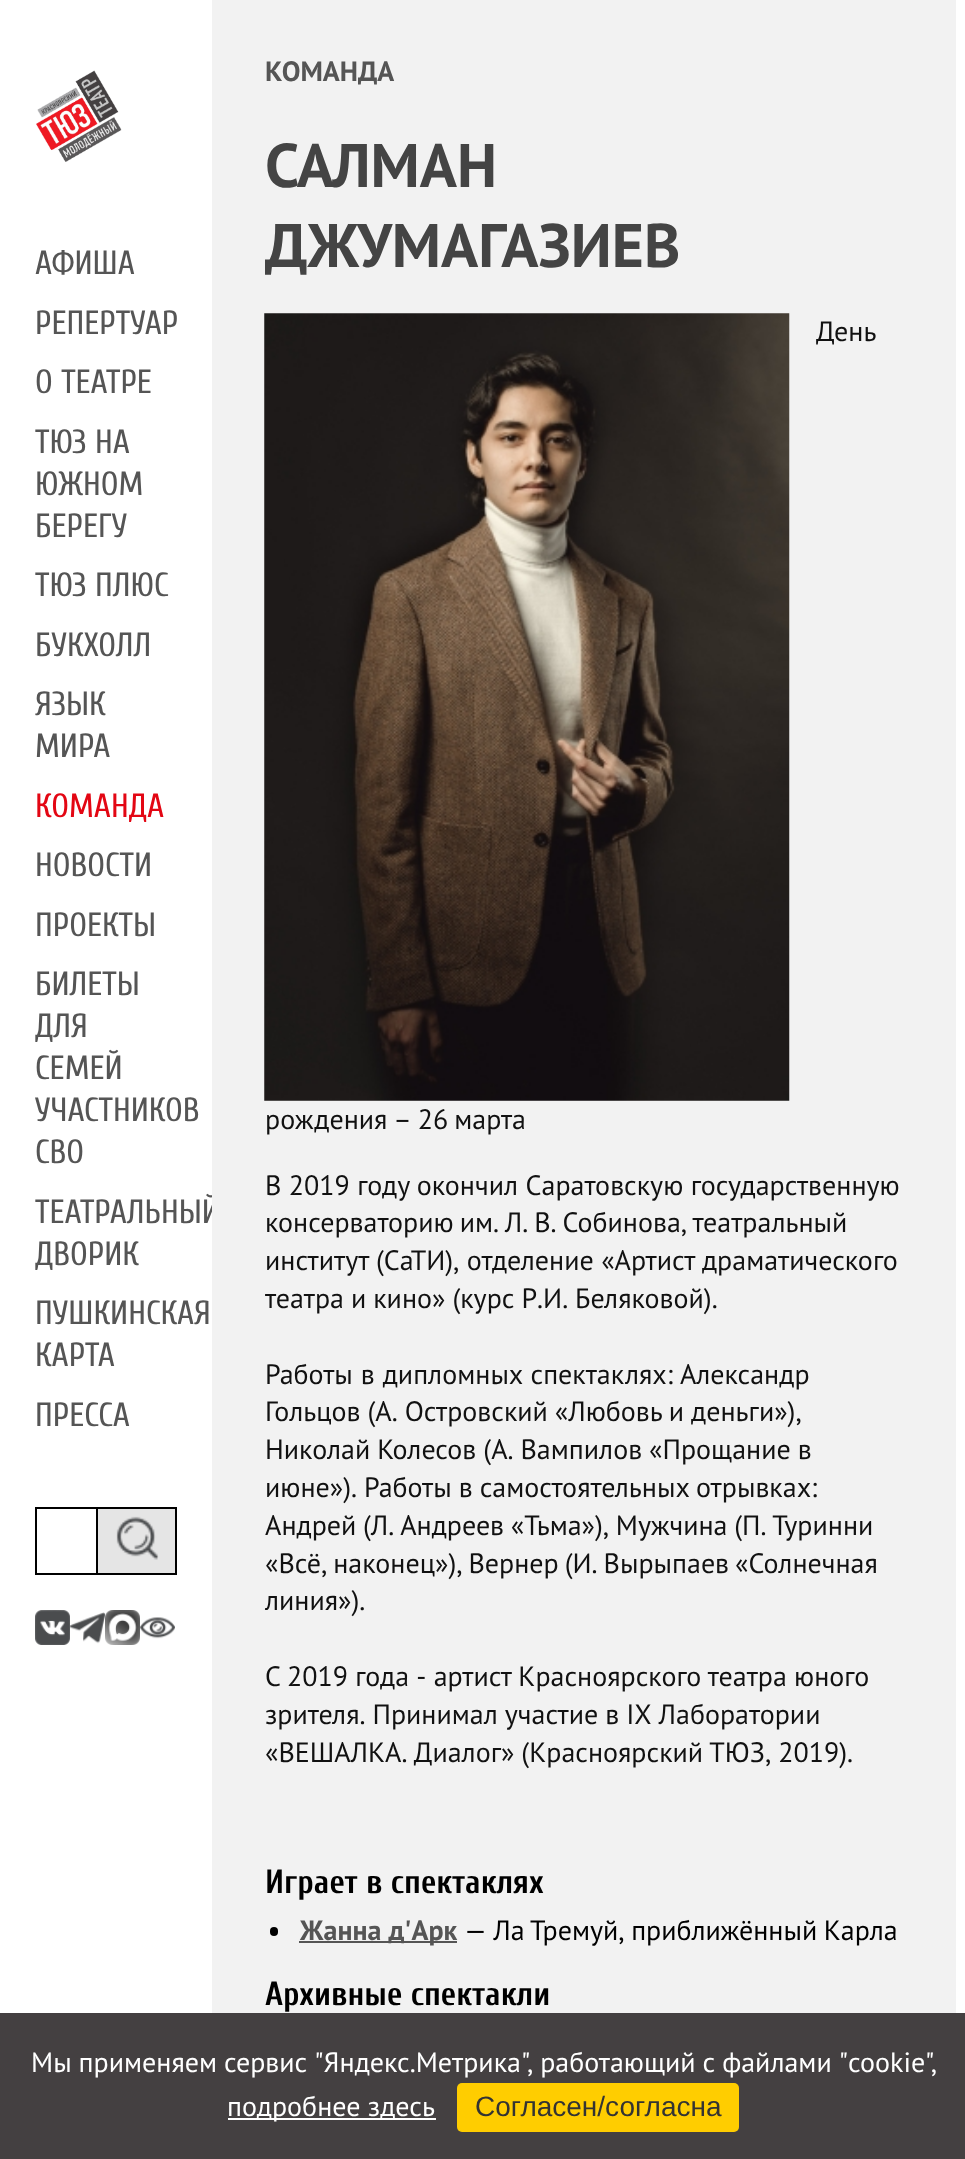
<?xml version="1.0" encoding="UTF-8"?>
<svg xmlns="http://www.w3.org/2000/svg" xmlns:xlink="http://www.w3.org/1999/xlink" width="965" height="2159">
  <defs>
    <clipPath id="clip1"><rect width="212" height="1778" /></clipPath>
  </defs>
  <rect width="100%" height="100%" fill="#ffffff" />
  <image x="36" y="70" width="86" height="92" xlink:href="image1.png" />
  <rect x="36" y="1508" width="65" height="66" fill="none" stroke="#000000" stroke-width="2" />
  <rect x="97" y="1508" width="79" height="66" fill="#e5e5e5" stroke="#000000" stroke-width="2" />
  <image x="116" y="1516" width="43" height="44" xlink:href="image2.png" />
  <image x="35" y="1610" width="35" height="35" xlink:href="image3.png" />
  <image x="70" y="1612" width="35" height="32" xlink:href="image4.png" />
  <image x="105" y="1610" width="35" height="35" xlink:href="image5.png" />
  <image x="140" y="1617" width="35" height="22" xlink:href="image6.png" />
  <rect x="212" width="744" height="2013" fill="#f2f2f2" />
  <image x="264" y="313" width="526" height="788" xlink:href="image7.png" />
  <rect x="270" y="1927" width="8" height="9" rx="4" fill="#000000" />
  <rect x="299" y="1941" width="158" height="2" fill="#555555" />
  <rect y="2013" width="965" height="146" fill="#444041" />
  <rect x="228" y="2118" width="208" height="2" fill="#ffffff" />
  <rect x="457" y="2083" width="282" height="49" rx="5" fill="#ffcd00" />
  <text x="35" y="274" style="font-family: Cuprum; font-size: 33.5px; fill: #555555">АФИША</text>
  <text x="35" y="334" style="font-family: Cuprum; font-size: 33.5px; fill: #555555">РЕПЕРТУАР</text>
  <text x="35" y="393" style="font-family: Cuprum; font-size: 33.5px; fill: #555555">О ТЕАТРЕ</text>
  <text x="35" y="453" style="font-family: Cuprum; font-size: 33.5px; fill: #555555">ТЮЗ НА</text>
  <text x="35" y="495" style="font-family: Cuprum; font-size: 33.5px; fill: #555555">ЮЖНОМ</text>
  <text x="35" y="537" style="font-family: Cuprum; font-size: 33.5px; fill: #555555">БЕРЕГУ</text>
  <text x="35" y="596" style="font-family: Cuprum; font-size: 33.5px; fill: #555555">ТЮЗ ПЛЮС</text>
  <text x="35" y="656" style="font-family: Cuprum; font-size: 33.5px; fill: #555555">БУКХОЛЛ</text>
  <text x="35" y="715" style="font-family: Cuprum; font-size: 33.5px; fill: #555555">ЯЗЫК</text>
  <text x="35" y="757" style="font-family: Cuprum; font-size: 33.5px; fill: #555555">МИРА</text>
  <text x="35" y="817" style="font-family: Cuprum; font-size: 33.5px; fill: #e30613">КОМАНДА</text>
  <text x="35" y="876" style="font-family: Cuprum; font-size: 33.5px; fill: #555555">НОВОСТИ</text>
  <text x="35" y="936" style="font-family: Cuprum; font-size: 33.5px; fill: #555555">ПРОЕКТЫ</text>
  <text x="35" y="995" style="font-family: Cuprum; font-size: 33.5px; fill: #555555">БИЛЕТЫ</text>
  <text x="35" y="1037" style="font-family: Cuprum; font-size: 33.5px; fill: #555555">ДЛЯ</text>
  <text x="35" y="1079" style="font-family: Cuprum; font-size: 33.5px; fill: #555555">СЕМЕЙ</text>
  <text x="35" y="1121" style="font-family: Cuprum; font-size: 33.5px; fill: #555555">УЧАСТНИКОВ</text>
  <text x="35" y="1163" style="font-family: Cuprum; font-size: 33.5px; fill: #555555">СВО</text>
  <g clip-path="url(#clip1)">
    <text x="35" y="1223" style="font-family: Cuprum; font-size: 33.5px; fill: #555555">ТЕАТРАЛЬНЫЙ</text>
  </g>
  <text x="35" y="1265" style="font-family: Cuprum; font-size: 33.5px; fill: #555555">ДВОРИК</text>
  <text x="35" y="1324" style="font-family: Cuprum; font-size: 33.5px; fill: #555555">ПУШКИНСКАЯ</text>
  <text x="35" y="1366" style="font-family: Cuprum; font-size: 33.5px; fill: #555555">КАРТА</text>
  <text x="35" y="1426" style="font-family: Cuprum; font-size: 33.5px; fill: #555555">ПРЕССА</text>
  <text x="265" y="81" style="font-family: PT Sans; font-size: 28px; font-weight: bold; fill: #555555">КОМАНДА</text>
  <text x="265" y="187" style="font-family: PT Sans; font-size: 61.5px; font-weight: bold; fill: #444444">САЛМАН</text>
  <text x="265" y="267" style="font-family: PT Sans; font-size: 61.5px; font-weight: bold; fill: #444444">ДЖУМАГАЗИЕВ</text>
  <text x="816" y="341" style="font-family: PT Sans; font-size: 28px; fill: #111111">День</text>
  <text x="265" y="1129" word-spacing="-1.5" style="font-family: PT Sans; font-size: 28px; fill: #111111">рождения – 26 марта</text>
  <text x="265" y="1195" style="font-family: PT Sans; font-size: 28px; fill: #111111">В 2019 году окончил Саратовскую государственную</text>
  <text x="265" y="1232" word-spacing="-1.5" style="font-family: PT Sans; font-size: 28px; fill: #111111">консерваторию им. Л. В. Собинова, театральный</text>
  <text x="265" y="1270" style="font-family: PT Sans; font-size: 28px; fill: #111111">институт (СаТИ), отделение «Артист драматического</text>
  <text x="265" y="1308" word-spacing="-0.5" style="font-family: PT Sans; font-size: 28px; fill: #111111">театра и кино» (курс Р.И. Беляковой).</text>
  <text x="265" y="1384" word-spacing="0.5" style="font-family: PT Sans; font-size: 28px; fill: #111111">Работы в дипломных спектаклях: Александр</text>
  <text x="265" y="1421" word-spacing="-0.5" style="font-family: PT Sans; font-size: 28px; fill: #111111">Гольцов (А. Островский «Любовь и деньги»),</text>
  <text x="265" y="1459" word-spacing="-0.5" style="font-family: PT Sans; font-size: 28px; fill: #111111">Николай Колесов (А. Вампилов «Прощание в</text>
  <text x="265" y="1497" word-spacing="-0.5" style="font-family: PT Sans; font-size: 28px; fill: #111111">июне»). Работы в самостоятельных отрывках:</text>
  <text x="265" y="1535" word-spacing="-0.75" style="font-family: PT Sans; font-size: 28px; fill: #111111">Андрей (Л. Андреев «Тьма»), Мужчина (П. Туринни</text>
  <text x="265" y="1573" word-spacing="-1.5" style="font-family: PT Sans; font-size: 28px; fill: #111111">«Всё, наконец»), Вернер (И. Вырыпаев «Солнечная</text>
  <text x="265" y="1610" style="font-family: PT Sans; font-size: 28px; fill: #111111">линия»).</text>
  <text x="265" y="1686" word-spacing="-0.25" style="font-family: PT Sans; font-size: 28px; fill: #111111">С 2019 года - артист Красноярского театра юного</text>
  <text x="265" y="1724" word-spacing="-0.5" style="font-family: PT Sans; font-size: 28px; fill: #111111">зрителя. Принимал участие в IX Лаборатории</text>
  <text x="265" y="1762" word-spacing="-0.5" style="font-family: PT Sans; font-size: 28px; fill: #111111">«ВЕШАЛКА. Диалог» (Красноярский ТЮЗ, 2019).</text>
  <text x="265" y="1893" style="font-family: Cuprum; font-size: 33.5px; font-weight: bold; fill: #000000">Играет в спектаклях</text>
  <text x="300" y="1940" style="font-family: PT Sans; font-size: 28px; font-weight: bold; fill: #555555">Жанна д'Арк</text>
  <text x="464" y="1940" word-spacing="-1" style="font-family: PT Sans; font-size: 28px; fill: #000000">— Ла Тремуй, приближённый Карла</text>
  <text x="265" y="2005" style="font-family: Cuprum; font-size: 33.5px; font-weight: bold; fill: #000000">Архивные спектакли</text>
  <text x="31" y="2072" word-spacing="-0.5" style="font-family: PT Sans; font-size: 28px; fill: #ffffff">Мы применяем сервис "Яндекс.Метрика", работающий с файлами "cookie",</text>
  <text x="227" y="2116" style="font-family: PT Sans; font-size: 28px; fill: #ffffff">подробнее здесь</text>
  <text x="475" y="2116" style="font-family: Liberation Sans; font-size: 28px; fill: #333333">Согласен/согласна</text>
</svg>
